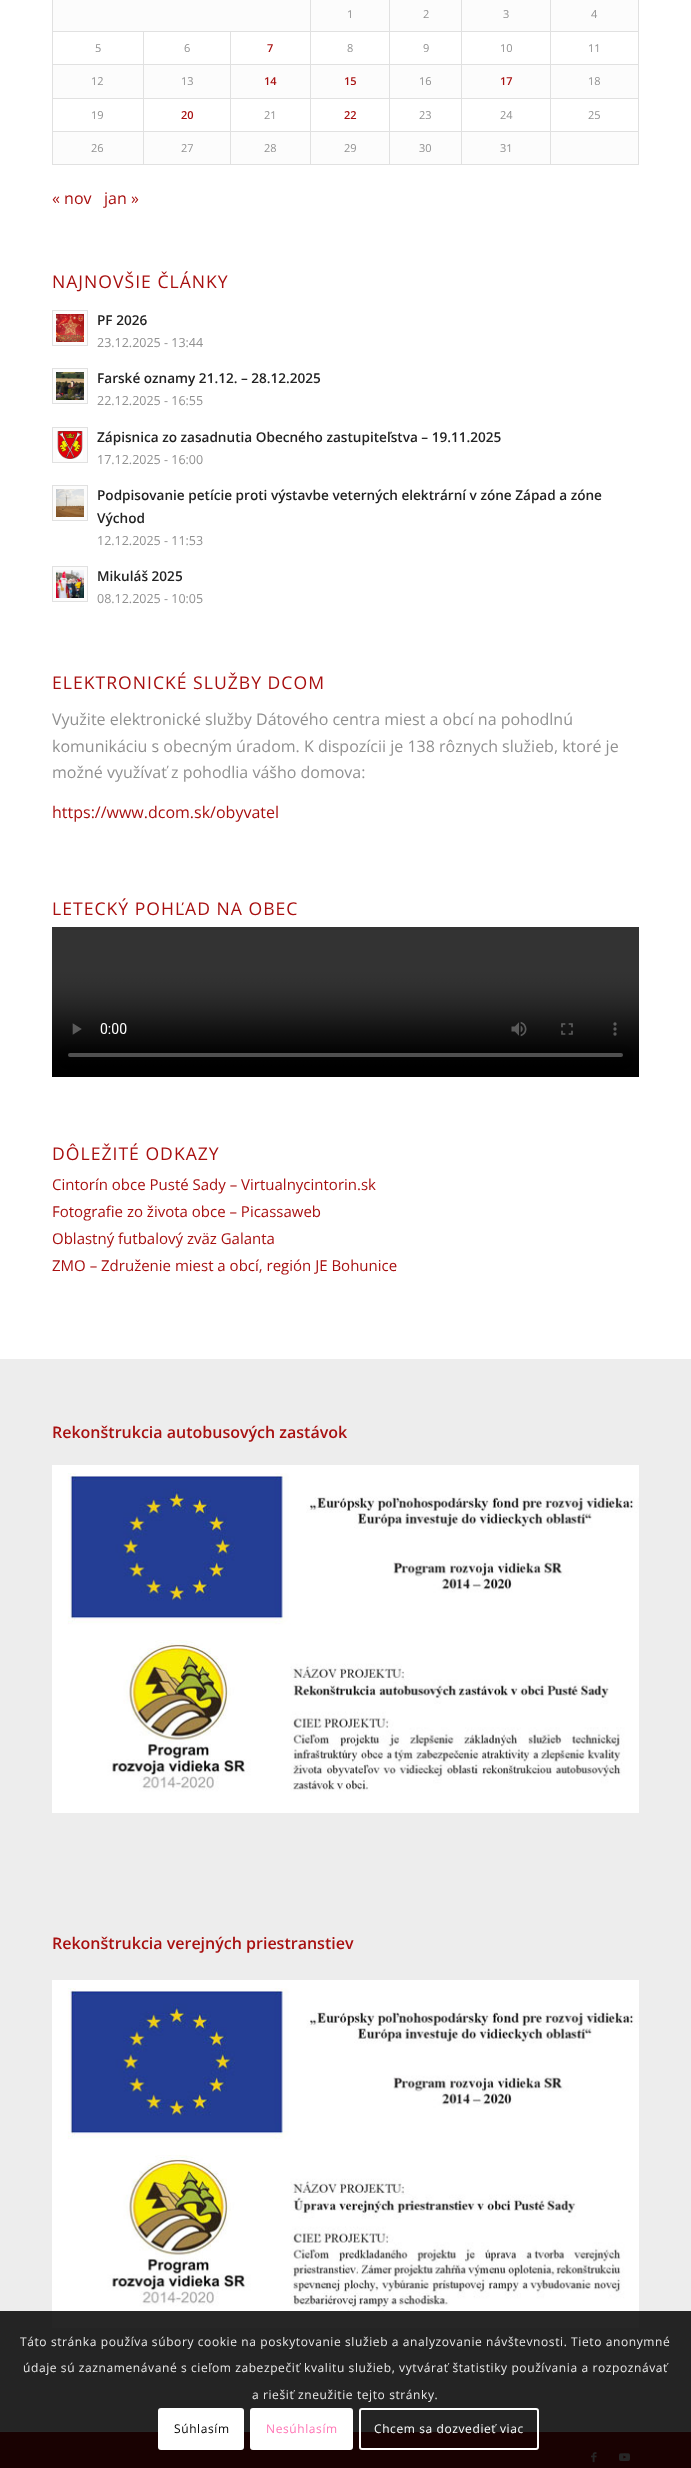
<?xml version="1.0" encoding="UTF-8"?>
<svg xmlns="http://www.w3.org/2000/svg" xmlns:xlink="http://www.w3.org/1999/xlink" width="691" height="2468">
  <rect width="100%" height="100%" fill="#ffffff" />
  <rect x="53" width="585" height="164" fill="#fcfcfc" />
  <rect x="53" y="32" width="585" height="32" fill="#ffffff" />
  <rect x="53" y="99" width="585" height="32" fill="#ffffff" />
  <rect x="638" width="1" height="165" fill="#e1e1e1" />
  <rect x="550" y="164" width="89" height="1" fill="#e1e1e1" />
  <rect x="550" y="131" width="1" height="34" fill="#e1e1e1" />
  <rect x="550" y="131" width="89" height="1" fill="#e1e1e1" />
  <rect x="550" y="98" width="1" height="34" fill="#e1e1e1" />
  <rect x="550" y="98" width="89" height="1" fill="#e1e1e1" />
  <rect x="550" y="64" width="1" height="35" fill="#e1e1e1" />
  <rect x="550" y="64" width="89" height="1" fill="#e1e1e1" />
  <rect x="550" y="31" width="1" height="34" fill="#e1e1e1" />
  <rect x="550" y="31" width="89" height="1" fill="#e1e1e1" />
  <rect x="550" width="1" height="32" fill="#e1e1e1" />
  <rect x="461" y="164" width="90" height="1" fill="#e1e1e1" />
  <rect x="461" y="131" width="1" height="34" fill="#e1e1e1" />
  <rect x="461" y="131" width="90" height="1" fill="#e1e1e1" />
  <rect x="461" y="98" width="1" height="34" fill="#e1e1e1" />
  <rect x="461" y="98" width="90" height="1" fill="#e1e1e1" />
  <rect x="461" y="64" width="1" height="35" fill="#e1e1e1" />
  <rect x="461" y="64" width="90" height="1" fill="#e1e1e1" />
  <rect x="461" y="31" width="1" height="34" fill="#e1e1e1" />
  <rect x="461" y="31" width="90" height="1" fill="#e1e1e1" />
  <rect x="461" width="1" height="32" fill="#e1e1e1" />
  <rect x="389" y="164" width="73" height="1" fill="#e1e1e1" />
  <rect x="389" y="131" width="1" height="34" fill="#e1e1e1" />
  <rect x="389" y="131" width="73" height="1" fill="#e1e1e1" />
  <rect x="389" y="98" width="1" height="34" fill="#e1e1e1" />
  <rect x="389" y="98" width="73" height="1" fill="#e1e1e1" />
  <rect x="389" y="64" width="1" height="35" fill="#e1e1e1" />
  <rect x="389" y="64" width="73" height="1" fill="#e1e1e1" />
  <rect x="389" y="31" width="1" height="34" fill="#e1e1e1" />
  <rect x="389" y="31" width="73" height="1" fill="#e1e1e1" />
  <rect x="389" width="1" height="32" fill="#e1e1e1" />
  <rect x="310" y="164" width="80" height="1" fill="#e1e1e1" />
  <rect x="310" y="131" width="1" height="34" fill="#e1e1e1" />
  <rect x="310" y="131" width="80" height="1" fill="#e1e1e1" />
  <rect x="310" y="98" width="1" height="34" fill="#e1e1e1" />
  <rect x="310" y="98" width="80" height="1" fill="#e1e1e1" />
  <rect x="310" y="64" width="1" height="35" fill="#e1e1e1" />
  <rect x="310" y="64" width="80" height="1" fill="#e1e1e1" />
  <rect x="310" y="31" width="1" height="34" fill="#e1e1e1" />
  <rect x="310" y="31" width="80" height="1" fill="#e1e1e1" />
  <rect x="310" width="1" height="32" fill="#e1e1e1" />
  <rect x="230" y="164" width="81" height="1" fill="#e1e1e1" />
  <rect x="230" y="131" width="1" height="34" fill="#e1e1e1" />
  <rect x="230" y="131" width="81" height="1" fill="#e1e1e1" />
  <rect x="230" y="98" width="1" height="34" fill="#e1e1e1" />
  <rect x="230" y="98" width="81" height="1" fill="#e1e1e1" />
  <rect x="230" y="64" width="1" height="35" fill="#e1e1e1" />
  <rect x="230" y="64" width="81" height="1" fill="#e1e1e1" />
  <rect x="230" y="31" width="1" height="34" fill="#e1e1e1" />
  <rect x="143" y="164" width="88" height="1" fill="#e1e1e1" />
  <rect x="143" y="131" width="1" height="34" fill="#e1e1e1" />
  <rect x="143" y="131" width="88" height="1" fill="#e1e1e1" />
  <rect x="143" y="98" width="1" height="34" fill="#e1e1e1" />
  <rect x="143" y="98" width="88" height="1" fill="#e1e1e1" />
  <rect x="143" y="64" width="1" height="35" fill="#e1e1e1" />
  <rect x="143" y="64" width="88" height="1" fill="#e1e1e1" />
  <rect x="143" y="31" width="1" height="34" fill="#e1e1e1" />
  <rect x="52" y="164" width="92" height="1" fill="#e1e1e1" />
  <rect x="52" y="131" width="1" height="34" fill="#e1e1e1" />
  <rect x="52" y="131" width="92" height="1" fill="#e1e1e1" />
  <rect x="52" y="98" width="1" height="34" fill="#e1e1e1" />
  <rect x="52" y="98" width="92" height="1" fill="#e1e1e1" />
  <rect x="52" y="64" width="1" height="35" fill="#e1e1e1" />
  <rect x="52" y="64" width="92" height="1" fill="#e1e1e1" />
  <rect x="52" y="31" width="1" height="34" fill="#e1e1e1" />
  <rect x="52" y="31" width="259" height="1" fill="#e1e1e1" />
  <rect x="52" width="1" height="32" fill="#e1e1e1" />
  <rect x="52.5" y="310.5" width="35" height="35" fill="#fcfcfc" stroke="#e1e1e1" />
  <image x="56" y="314" width="28" height="28" xlink:href="image1.png" />
  <rect x="52.5" y="368.5" width="35" height="35" fill="#fcfcfc" stroke="#e1e1e1" />
  <image x="56" y="372" width="28" height="28" xlink:href="image2.png" />
  <rect x="52.5" y="427.5" width="35" height="35" fill="#fcfcfc" stroke="#e1e1e1" />
  <image x="57" y="431" width="26" height="28" xlink:href="image3.png" />
  <rect x="52.5" y="485.5" width="35" height="35" fill="#fcfcfc" stroke="#e1e1e1" />
  <image x="56" y="489" width="28" height="28" xlink:href="image4.png" />
  <rect x="52.5" y="566.5" width="35" height="35" fill="#fcfcfc" stroke="#e1e1e1" />
  <image x="56" y="570" width="28" height="28" xlink:href="image5.png" />
  <image x="52" y="927" width="587" height="150" xlink:href="image6.png" />
  <rect y="1359" width="691" height="1072" fill="#ededed" />
  <image x="52" y="1465" width="587" height="348" xlink:href="image7.png" />
  <image x="52" y="1980" width="587" height="348" xlink:href="image8.png" />
  <rect y="2432" width="691" height="36" fill="#a81010" />
  <image x="591" y="2452" width="6" height="11" xlink:href="image9.png" />
  <image x="619" y="2453" width="11" height="8" xlink:href="image10.png" />
  <rect y="2311" width="691" height="157" fill="#000000" fill-opacity="0.85" />
  <rect x="158" y="2408" width="86" height="42" rx="3" fill="#ffffff" />
  <rect x="251" y="2409" width="101" height="40" rx="2" fill="#ffffff" stroke="#ffffff" stroke-width="2" />
  <rect x="360" y="2409" width="178" height="40" rx="2" fill="none" stroke="#ffffff" stroke-width="2" />
  <text x="347" y="18" style="font-family: Open Sans; font-size: 11px; fill: #919191">1</text>
  <text x="423" y="18" style="font-family: Open Sans; font-size: 11px; fill: #919191">2</text>
  <text x="503" y="18" style="font-family: Open Sans; font-size: 11px; fill: #919191">3</text>
  <text x="591" y="18" style="font-family: Open Sans; font-size: 11px; fill: #919191">4</text>
  <text x="95" y="52" style="font-family: Open Sans; font-size: 11px; fill: #919191">5</text>
  <text x="184" y="52" style="font-family: Open Sans; font-size: 11px; fill: #919191">6</text>
  <text x="267" y="52" style="font-family: Open Sans; font-size: 11px; font-weight: 600; fill: #a81010">7</text>
  <text x="347" y="52" style="font-family: Open Sans; font-size: 11px; fill: #919191">8</text>
  <text x="423" y="52" style="font-family: Open Sans; font-size: 11px; fill: #919191">9</text>
  <text x="500" y="52" style="font-family: Open Sans; font-size: 11px; fill: #919191">10</text>
  <text x="588" y="52" style="font-family: Open Sans; font-size: 11px; fill: #919191">11</text>
  <text x="91" y="85" style="font-family: Open Sans; font-size: 11px; fill: #919191">12</text>
  <text x="181" y="85" style="font-family: Open Sans; font-size: 11px; fill: #919191">13</text>
  <text x="264" y="85" style="font-family: Open Sans; font-size: 11px; font-weight: 600; fill: #a81010">14</text>
  <text x="344" y="85" style="font-family: Open Sans; font-size: 11px; font-weight: 600; fill: #a81010">15</text>
  <text x="419" y="85" style="font-family: Open Sans; font-size: 11px; fill: #919191">16</text>
  <text x="500" y="85" style="font-family: Open Sans; font-size: 11px; font-weight: 600; fill: #a81010">17</text>
  <text x="588" y="85" style="font-family: Open Sans; font-size: 11px; fill: #919191">18</text>
  <text x="91" y="119" style="font-family: Open Sans; font-size: 11px; fill: #919191">19</text>
  <text x="181" y="119" style="font-family: Open Sans; font-size: 11px; font-weight: 600; fill: #a81010">20</text>
  <text x="264" y="119" style="font-family: Open Sans; font-size: 11px; fill: #919191">21</text>
  <text x="344" y="119" style="font-family: Open Sans; font-size: 11px; font-weight: 600; fill: #a81010">22</text>
  <text x="419" y="119" style="font-family: Open Sans; font-size: 11px; fill: #919191">23</text>
  <text x="500" y="119" style="font-family: Open Sans; font-size: 11px; fill: #919191">24</text>
  <text x="588" y="119" style="font-family: Open Sans; font-size: 11px; fill: #919191">25</text>
  <text x="91" y="152" style="font-family: Open Sans; font-size: 11px; fill: #919191">26</text>
  <text x="181" y="152" style="font-family: Open Sans; font-size: 11px; fill: #919191">27</text>
  <text x="264" y="152" style="font-family: Open Sans; font-size: 11px; fill: #919191">28</text>
  <text x="344" y="152" style="font-family: Open Sans; font-size: 11px; fill: #919191">29</text>
  <text x="419" y="152" style="font-family: Open Sans; font-size: 11px; fill: #919191">30</text>
  <text x="500" y="152" style="font-family: Open Sans; font-size: 11px; fill: #919191">31</text>
  <text x="52" y="204" style="font-family: Open Sans; font-size: 16px; fill: #a81010">« nov</text>
  <text x="104" y="204" style="font-family: Open Sans; font-size: 16px; fill: #a81010">jan »</text>
  <text x="52" y="288" style="font-family: Open Sans; font-size: 17.6px; letter-spacing: 1px; fill: #a81010">NAJNOVŠIE ČLÁNKY</text>
  <text x="97" y="325" style="font-family: Open Sans; font-size: 13.6px; font-weight: 600; fill: #222222">PF 2026</text>
  <text x="97" y="347" style="font-family: Open Sans; font-size: 12.5px; fill: #919191">23.12.2025 - 13:44</text>
  <text x="97" y="383" style="font-family: Open Sans; font-size: 13.6px; font-weight: 600; fill: #222222">Farské oznamy 21.12. – 28.12.2025</text>
  <text x="97" y="405" style="font-family: Open Sans; font-size: 12.5px; fill: #919191">22.12.2025 - 16:55</text>
  <text x="97" y="442" style="font-family: Open Sans; font-size: 13.6px; font-weight: 600; fill: #222222">Zápisnica zo zasadnutia Obecného zastupiteľstva – 19.11.2025</text>
  <text x="97" y="464" style="font-family: Open Sans; font-size: 12.5px; fill: #919191">17.12.2025 - 16:00</text>
  <text x="97" y="500" style="font-family: Open Sans; font-size: 13.6px; font-weight: 600; fill: #222222">Podpisovanie petície proti výstavbe veterných elektrární v zóne Západ a zóne</text>
  <text x="97" y="523" style="font-family: Open Sans; font-size: 13.6px; font-weight: 600; fill: #222222">Východ</text>
  <text x="97" y="545" style="font-family: Open Sans; font-size: 12.5px; fill: #919191">12.12.2025 - 11:53</text>
  <text x="97" y="581" style="font-family: Open Sans; font-size: 13.6px; font-weight: 600; fill: #222222">Mikuláš 2025</text>
  <text x="97" y="603" style="font-family: Open Sans; font-size: 12.5px; fill: #919191">08.12.2025 - 10:05</text>
  <text x="52" y="689" style="font-family: Open Sans; font-size: 17.6px; letter-spacing: 1px; fill: #a81010">ELEKTRONICKÉ SLUŽBY DCOM</text>
  <text x="52" y="725" style="font-family: Open Sans; font-size: 16px; fill: #919191">Využite elektronické služby Dátového centra miest a obcí na pohodlnú</text>
  <text x="52" y="752" style="font-family: Open Sans; font-size: 16px; fill: #919191">komunikáciu s obecným úradom. K dispozícii je 138 rôznych služieb, ktoré je</text>
  <text x="52" y="778" style="font-family: Open Sans; font-size: 16px; fill: #919191">možné využívať z pohodlia vášho domova:</text>
  <text x="52" y="818" style="font-family: Open Sans; font-size: 16px; fill: #a81010">https://www.dcom.sk/obyvatel</text>
  <text x="52" y="915" style="font-family: Open Sans; font-size: 17.6px; letter-spacing: 1px; fill: #a81010">LETECKÝ POHĽAD NA OBEC</text>
  <text x="52" y="1160" style="font-family: Open Sans; font-size: 17.6px; letter-spacing: 1px; fill: #a81010">DÔLEŽITÉ ODKAZY</text>
  <text x="52" y="1190" style="font-family: Open Sans; font-size: 15px; fill: #a81010">Cintorín obce Pusté Sady – Virtualnycintorin.sk</text>
  <text x="52" y="1217" style="font-family: Open Sans; font-size: 15px; fill: #a81010">Fotografie zo života obce – Picassaweb</text>
  <text x="52" y="1244" style="font-family: Open Sans; font-size: 15px; fill: #a81010">Oblastný futbalový zväz Galanta</text>
  <text x="52" y="1271" style="font-family: Open Sans; font-size: 15px; fill: #a81010">ZMO – Združenie miest a obcí, región JE Bohunice</text>
  <text x="52" y="1438" style="font-family: Open Sans; font-size: 16px; font-weight: 600; fill: #a81010">Rekonštrukcia autobusových zastávok</text>
  <text x="52" y="1949" style="font-family: Open Sans; font-size: 16px; font-weight: 600; fill: #a81010">Rekonštrukcia verejných priestranstiev</text>
  <text x="20" y="2346" style="font-family: Open Sans; font-size: 12px; letter-spacing: 0.6px; fill: #e9e9e9">Táto stránka používa súbory cookie na poskytovanie služieb a analyzovanie návštevnosti. Tieto anonymné</text>
  <text x="23" y="2372" style="font-family: Open Sans; font-size: 12px; letter-spacing: 0.6px; fill: #e9e9e9">údaje sú zaznamenávané s cieľom zabezpečiť kvalitu služieb, vytvárať štatistiky používania a rozpoznávať</text>
  <text x="252" y="2399" style="font-family: Open Sans; font-size: 12px; letter-spacing: 0.6px; fill: #e9e9e9">a riešiť zneužitie tejto stránky.</text>
  <text x="174" y="2433" style="font-family: Open Sans; font-size: 12px; letter-spacing: 0.6px; fill: #000000">Súhlasím</text>
  <text x="266" y="2433" style="font-family: Open Sans; font-size: 12px; letter-spacing: 0.6px; fill: #ff75b5">Nesúhlasím</text>
  <text x="374" y="2433" style="font-family: Open Sans; font-size: 12px; letter-spacing: 0.6px; fill: #ffffff">Chcem sa dozvedieť viac</text>
</svg>
